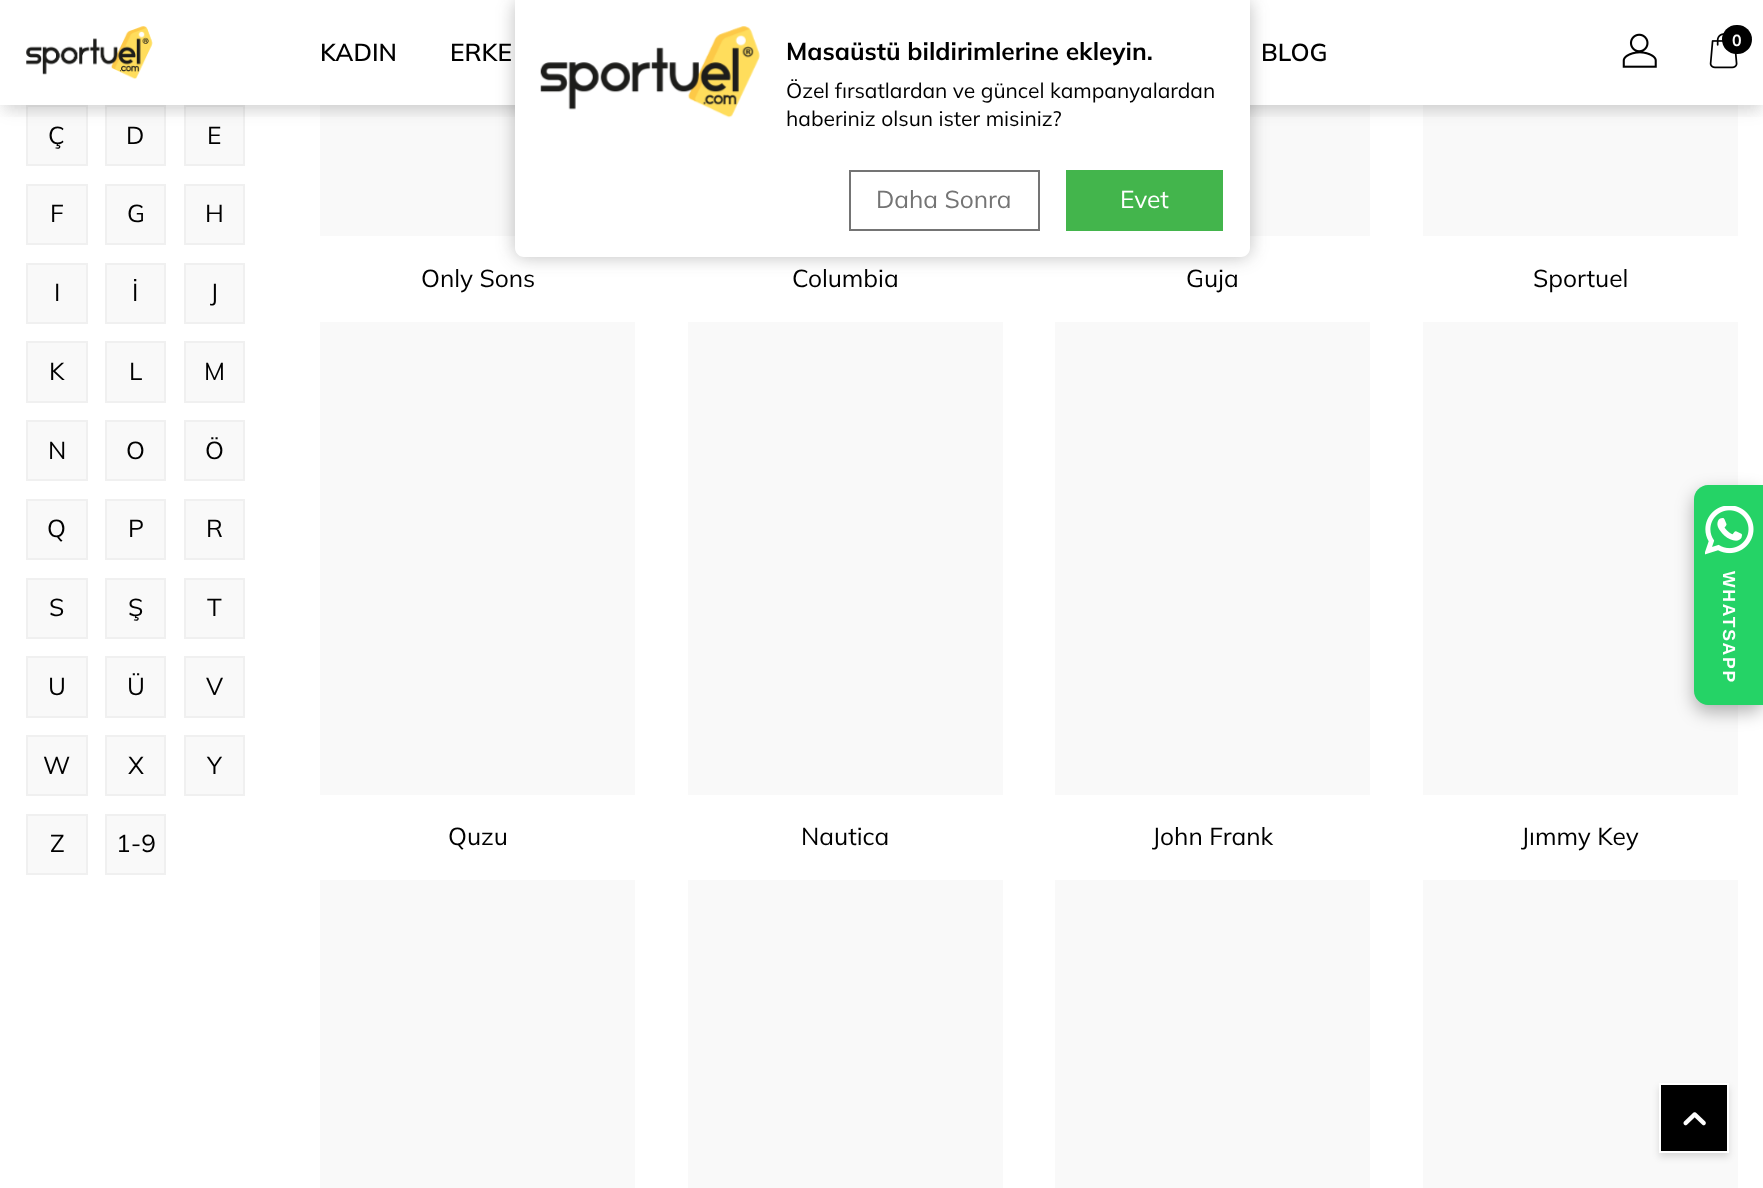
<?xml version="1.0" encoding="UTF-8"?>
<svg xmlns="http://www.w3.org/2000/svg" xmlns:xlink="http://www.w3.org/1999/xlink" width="1763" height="1188">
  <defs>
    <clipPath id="clip1"><rect x="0" y="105" width="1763" height="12" /></clipPath>
  </defs>
  <rect width="100%" height="100%" fill="#ffffff" />
  <rect x="27" y="106" width="60" height="59" fill="#f9f9f9" stroke="#f0f0f0" stroke-width="2" />
  <rect x="106" y="106" width="59" height="59" fill="#f9f9f9" stroke="#f0f0f0" stroke-width="2" />
  <rect x="185" y="106" width="59" height="59" fill="#f9f9f9" stroke="#f0f0f0" stroke-width="2" />
  <rect x="320" y="105" width="195" height="131" fill="#f9f9f9" />
  <rect x="1250" y="105" width="120" height="131" fill="#f9f9f9" />
  <rect x="1423" y="105" width="315" height="131" fill="#f9f9f9" />
  <rect x="4" y="11" width="1757" height="98" fill="#000000" fill-opacity="0.1" filter="blur(9px)" />
  <rect width="1763" height="105" fill="#ffffff" />
  <g clip-path="url(#clip1)">
    <rect x="4" y="11" width="1757" height="98" fill="#000000" fill-opacity="0.1" filter="blur(9px)" />
  </g>
  <image x="26" y="26" width="127" height="53" xlink:href="image1.png" />
  <image x="1622" y="33" width="35" height="35" xlink:href="image2.png" />
  <image x="1709" y="33" width="29" height="36" xlink:href="image3.png" />
  <rect x="1722" y="25" width="30" height="29" rx="14.5" fill="#000000" />
  <rect x="1423" y="880" width="315" height="308" fill="#f9f9f9" />
  <rect x="1659" y="1087" width="70" height="70" fill="#000000" fill-opacity="0.13" filter="blur(3.5px)" />
  <rect x="1660" y="1084" width="68" height="68" fill="#000000" stroke="#ffffff" stroke-width="2" />
  <image x="1683" y="1112" width="23" height="14" xlink:href="image4.png" />
  <rect x="515" width="735" height="257" rx="9" fill="#282828" fill-opacity="0.3" filter="blur(9px)" />
  <path d="M 515 0 h 735 v 248 c 0 5 -4 9 -9 9 h -717 c -5 0 -9 -4 -9 -9 z" fill="#ffffff" />
  <image x="540" y="26" width="220" height="92" xlink:href="image5.png" />
  <rect x="850" y="171" width="189" height="59" fill="none" stroke="#747474" stroke-width="2" />
  <rect x="1066" y="170" width="157" height="61" fill="#43b54c" />
  <rect x="27" y="185" width="60" height="59" fill="#f9f9f9" stroke="#f0f0f0" stroke-width="2" />
  <rect x="106" y="185" width="59" height="59" fill="#f9f9f9" stroke="#f0f0f0" stroke-width="2" />
  <rect x="185" y="185" width="59" height="59" fill="#f9f9f9" stroke="#f0f0f0" stroke-width="2" />
  <rect x="27" y="264" width="60" height="59" fill="#f9f9f9" stroke="#f0f0f0" stroke-width="2" />
  <rect x="106" y="264" width="59" height="59" fill="#f9f9f9" stroke="#f0f0f0" stroke-width="2" />
  <rect x="185" y="264" width="59" height="59" fill="#f9f9f9" stroke="#f0f0f0" stroke-width="2" />
  <rect x="27" y="342" width="60" height="60" fill="#f9f9f9" stroke="#f0f0f0" stroke-width="2" />
  <rect x="106" y="342" width="59" height="60" fill="#f9f9f9" stroke="#f0f0f0" stroke-width="2" />
  <rect x="185" y="342" width="59" height="60" fill="#f9f9f9" stroke="#f0f0f0" stroke-width="2" />
  <rect x="27" y="421" width="60" height="59" fill="#f9f9f9" stroke="#f0f0f0" stroke-width="2" />
  <rect x="106" y="421" width="59" height="59" fill="#f9f9f9" stroke="#f0f0f0" stroke-width="2" />
  <rect x="185" y="421" width="59" height="59" fill="#f9f9f9" stroke="#f0f0f0" stroke-width="2" />
  <rect x="27" y="500" width="60" height="59" fill="#f9f9f9" stroke="#f0f0f0" stroke-width="2" />
  <rect x="106" y="500" width="59" height="59" fill="#f9f9f9" stroke="#f0f0f0" stroke-width="2" />
  <rect x="185" y="500" width="59" height="59" fill="#f9f9f9" stroke="#f0f0f0" stroke-width="2" />
  <rect x="27" y="579" width="60" height="59" fill="#f9f9f9" stroke="#f0f0f0" stroke-width="2" />
  <rect x="106" y="579" width="59" height="59" fill="#f9f9f9" stroke="#f0f0f0" stroke-width="2" />
  <rect x="185" y="579" width="59" height="59" fill="#f9f9f9" stroke="#f0f0f0" stroke-width="2" />
  <rect x="27" y="657" width="60" height="60" fill="#f9f9f9" stroke="#f0f0f0" stroke-width="2" />
  <rect x="106" y="657" width="59" height="60" fill="#f9f9f9" stroke="#f0f0f0" stroke-width="2" />
  <rect x="185" y="657" width="59" height="60" fill="#f9f9f9" stroke="#f0f0f0" stroke-width="2" />
  <rect x="27" y="736" width="60" height="59" fill="#f9f9f9" stroke="#f0f0f0" stroke-width="2" />
  <rect x="106" y="736" width="59" height="59" fill="#f9f9f9" stroke="#f0f0f0" stroke-width="2" />
  <rect x="185" y="736" width="59" height="59" fill="#f9f9f9" stroke="#f0f0f0" stroke-width="2" />
  <rect x="27" y="815" width="60" height="59" fill="#f9f9f9" stroke="#f0f0f0" stroke-width="2" />
  <rect x="106" y="815" width="59" height="59" fill="#f9f9f9" stroke="#f0f0f0" stroke-width="2" />
  <rect x="320" y="322" width="315" height="473" fill="#f9f9f9" />
  <rect x="688" y="322" width="315" height="473" fill="#f9f9f9" />
  <rect x="1055" y="322" width="315" height="473" fill="#f9f9f9" />
  <rect x="1423" y="322" width="315" height="473" fill="#f9f9f9" />
  <rect x="320" y="880" width="315" height="308" fill="#f9f9f9" />
  <rect x="688" y="880" width="315" height="308" fill="#f9f9f9" />
  <rect x="1055" y="880" width="315" height="308" fill="#f9f9f9" />
  <rect x="1694" y="492" width="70" height="220" rx="14" fill="#000000" fill-opacity="0.3" filter="blur(9px)" />
  <path d="M 1708 485 h 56 v 220 h -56 c -7.5 0 -14 -6.5 -14 -14 v -192 c 0 -7.5 6.5 -14 14 -14 z" fill="#25d366" />
  <image x="1705" y="506" width="49" height="49" xlink:href="image6.png" />
  <text x="1732" y="46" style="font-family: Mulish; font-size: 16px; font-weight: bold; fill: #ffffff">0</text>
  <text x="320" y="61" style="font-family: Mulish; font-size: 24.5px; font-weight: 600; fill: #000000">KADIN</text>
  <text x="450" y="61" style="font-family: Mulish; font-size: 24.5px; font-weight: 600; fill: #000000">ERKE</text>
  <text x="1261" y="61" style="font-family: Mulish; font-size: 24.5px; font-weight: 600; fill: #000000">BLOG</text>
  <text x="786" y="60" style="font-family: Mulish; font-size: 24.5px; font-weight: bold; fill: #000000">Masaüstü bildirimlerine ekleyin.</text>
  <text x="786" y="98" style="font-family: Mulish; font-size: 21px; fill: #000000">Özel fırsatlardan ve güncel kampanyalardan</text>
  <text x="786" y="126" style="font-family: Mulish; font-size: 21px; fill: #000000">haberiniz olsun ister misiniz?</text>
  <text x="876" y="208" style="font-family: Mulish; font-size: 24.5px; fill: #747474">Daha Sonra</text>
  <text x="1120" y="208" style="font-family: Mulish; font-size: 24.5px; fill: #ffffff">Evet</text>
  <text x="48" y="144" style="font-family: Mulish; font-size: 24.5px; fill: #000000">Ç</text>
  <text x="126" y="144" style="font-family: Mulish; font-size: 24.5px; fill: #000000">D</text>
  <text x="207" y="144" style="font-family: Mulish; font-size: 24.5px; fill: #000000">E</text>
  <text x="50" y="222" style="font-family: Mulish; font-size: 24.5px; fill: #000000">F</text>
  <text x="127" y="222" style="font-family: Mulish; font-size: 24.5px; fill: #000000">G</text>
  <text x="205" y="222" style="font-family: Mulish; font-size: 24.5px; fill: #000000">H</text>
  <text x="54" y="301" style="font-family: Mulish; font-size: 24.5px; fill: #000000">I</text>
  <text x="132" y="301" style="font-family: Mulish; font-size: 24.5px; fill: #000000">İ</text>
  <text x="210" y="301" style="font-family: Mulish; font-size: 24.5px; fill: #000000">J</text>
  <text x="49" y="380" style="font-family: Mulish; font-size: 24.5px; fill: #000000">K</text>
  <text x="129" y="380" style="font-family: Mulish; font-size: 24.5px; fill: #000000">L</text>
  <text x="204" y="380" style="font-family: Mulish; font-size: 24.5px; fill: #000000">M</text>
  <text x="48" y="459" style="font-family: Mulish; font-size: 24.5px; fill: #000000">N</text>
  <text x="126" y="459" style="font-family: Mulish; font-size: 24.5px; fill: #000000">O</text>
  <text x="205" y="459" style="font-family: Mulish; font-size: 24.5px; fill: #000000">Ö</text>
  <text x="47" y="537" style="font-family: Mulish; font-size: 24.5px; fill: #000000">Q</text>
  <text x="128" y="537" style="font-family: Mulish; font-size: 24.5px; fill: #000000">P</text>
  <text x="206" y="537" style="font-family: Mulish; font-size: 24.5px; fill: #000000">R</text>
  <text x="49" y="616" style="font-family: Mulish; font-size: 24.5px; fill: #000000">S</text>
  <text x="128" y="616" style="font-family: Mulish; font-size: 24.5px; fill: #000000">Ş</text>
  <text x="207" y="616" style="font-family: Mulish; font-size: 24.5px; fill: #000000">T</text>
  <text x="48" y="695" style="font-family: Mulish; font-size: 24.5px; fill: #000000">U</text>
  <text x="127" y="695" style="font-family: Mulish; font-size: 24.5px; fill: #000000">Ü</text>
  <text x="206" y="695" style="font-family: Mulish; font-size: 24.5px; fill: #000000">V</text>
  <text x="43" y="774" style="font-family: Mulish; font-size: 24.5px; fill: #000000">W</text>
  <text x="128" y="774" style="font-family: Mulish; font-size: 24.5px; fill: #000000">X</text>
  <text x="207" y="774" style="font-family: Mulish; font-size: 24.5px; fill: #000000">Y</text>
  <text x="50" y="852" style="font-family: Mulish; font-size: 24.5px; fill: #000000">Z</text>
  <text x="116" y="852" style="font-family: Mulish; font-size: 24.5px; fill: #000000">1-9</text>
  <text x="421" y="287" style="font-family: Mulish; font-size: 24.5px; fill: #000000">Only Sons</text>
  <text x="792" y="287" style="font-family: Mulish; font-size: 24.5px; fill: #000000">Columbia</text>
  <text x="1186" y="287" style="font-family: Mulish; font-size: 24.5px; fill: #000000">Guja</text>
  <text x="1533" y="287" style="font-family: Mulish; font-size: 24.5px; fill: #000000">Sportuel</text>
  <text x="448" y="845" style="font-family: Mulish; font-size: 24.5px; fill: #000000">Quzu</text>
  <text x="801" y="845" style="font-family: Mulish; font-size: 24.5px; fill: #000000">Nautica</text>
  <text x="1152" y="845" style="font-family: Mulish; font-size: 24.5px; fill: #000000">John Frank</text>
  <text x="1521" y="845" style="font-family: Mulish; font-size: 24.5px; fill: #000000">Jımmy Key</text>
  <text x="1723" y="571" transform="rotate(90 1723 571)" style="font-family: Liberation Sans; font-size: 17.5px; font-weight: bold; letter-spacing: 1.75px; fill: #ffffff">WHATSAPP</text>
</svg>
